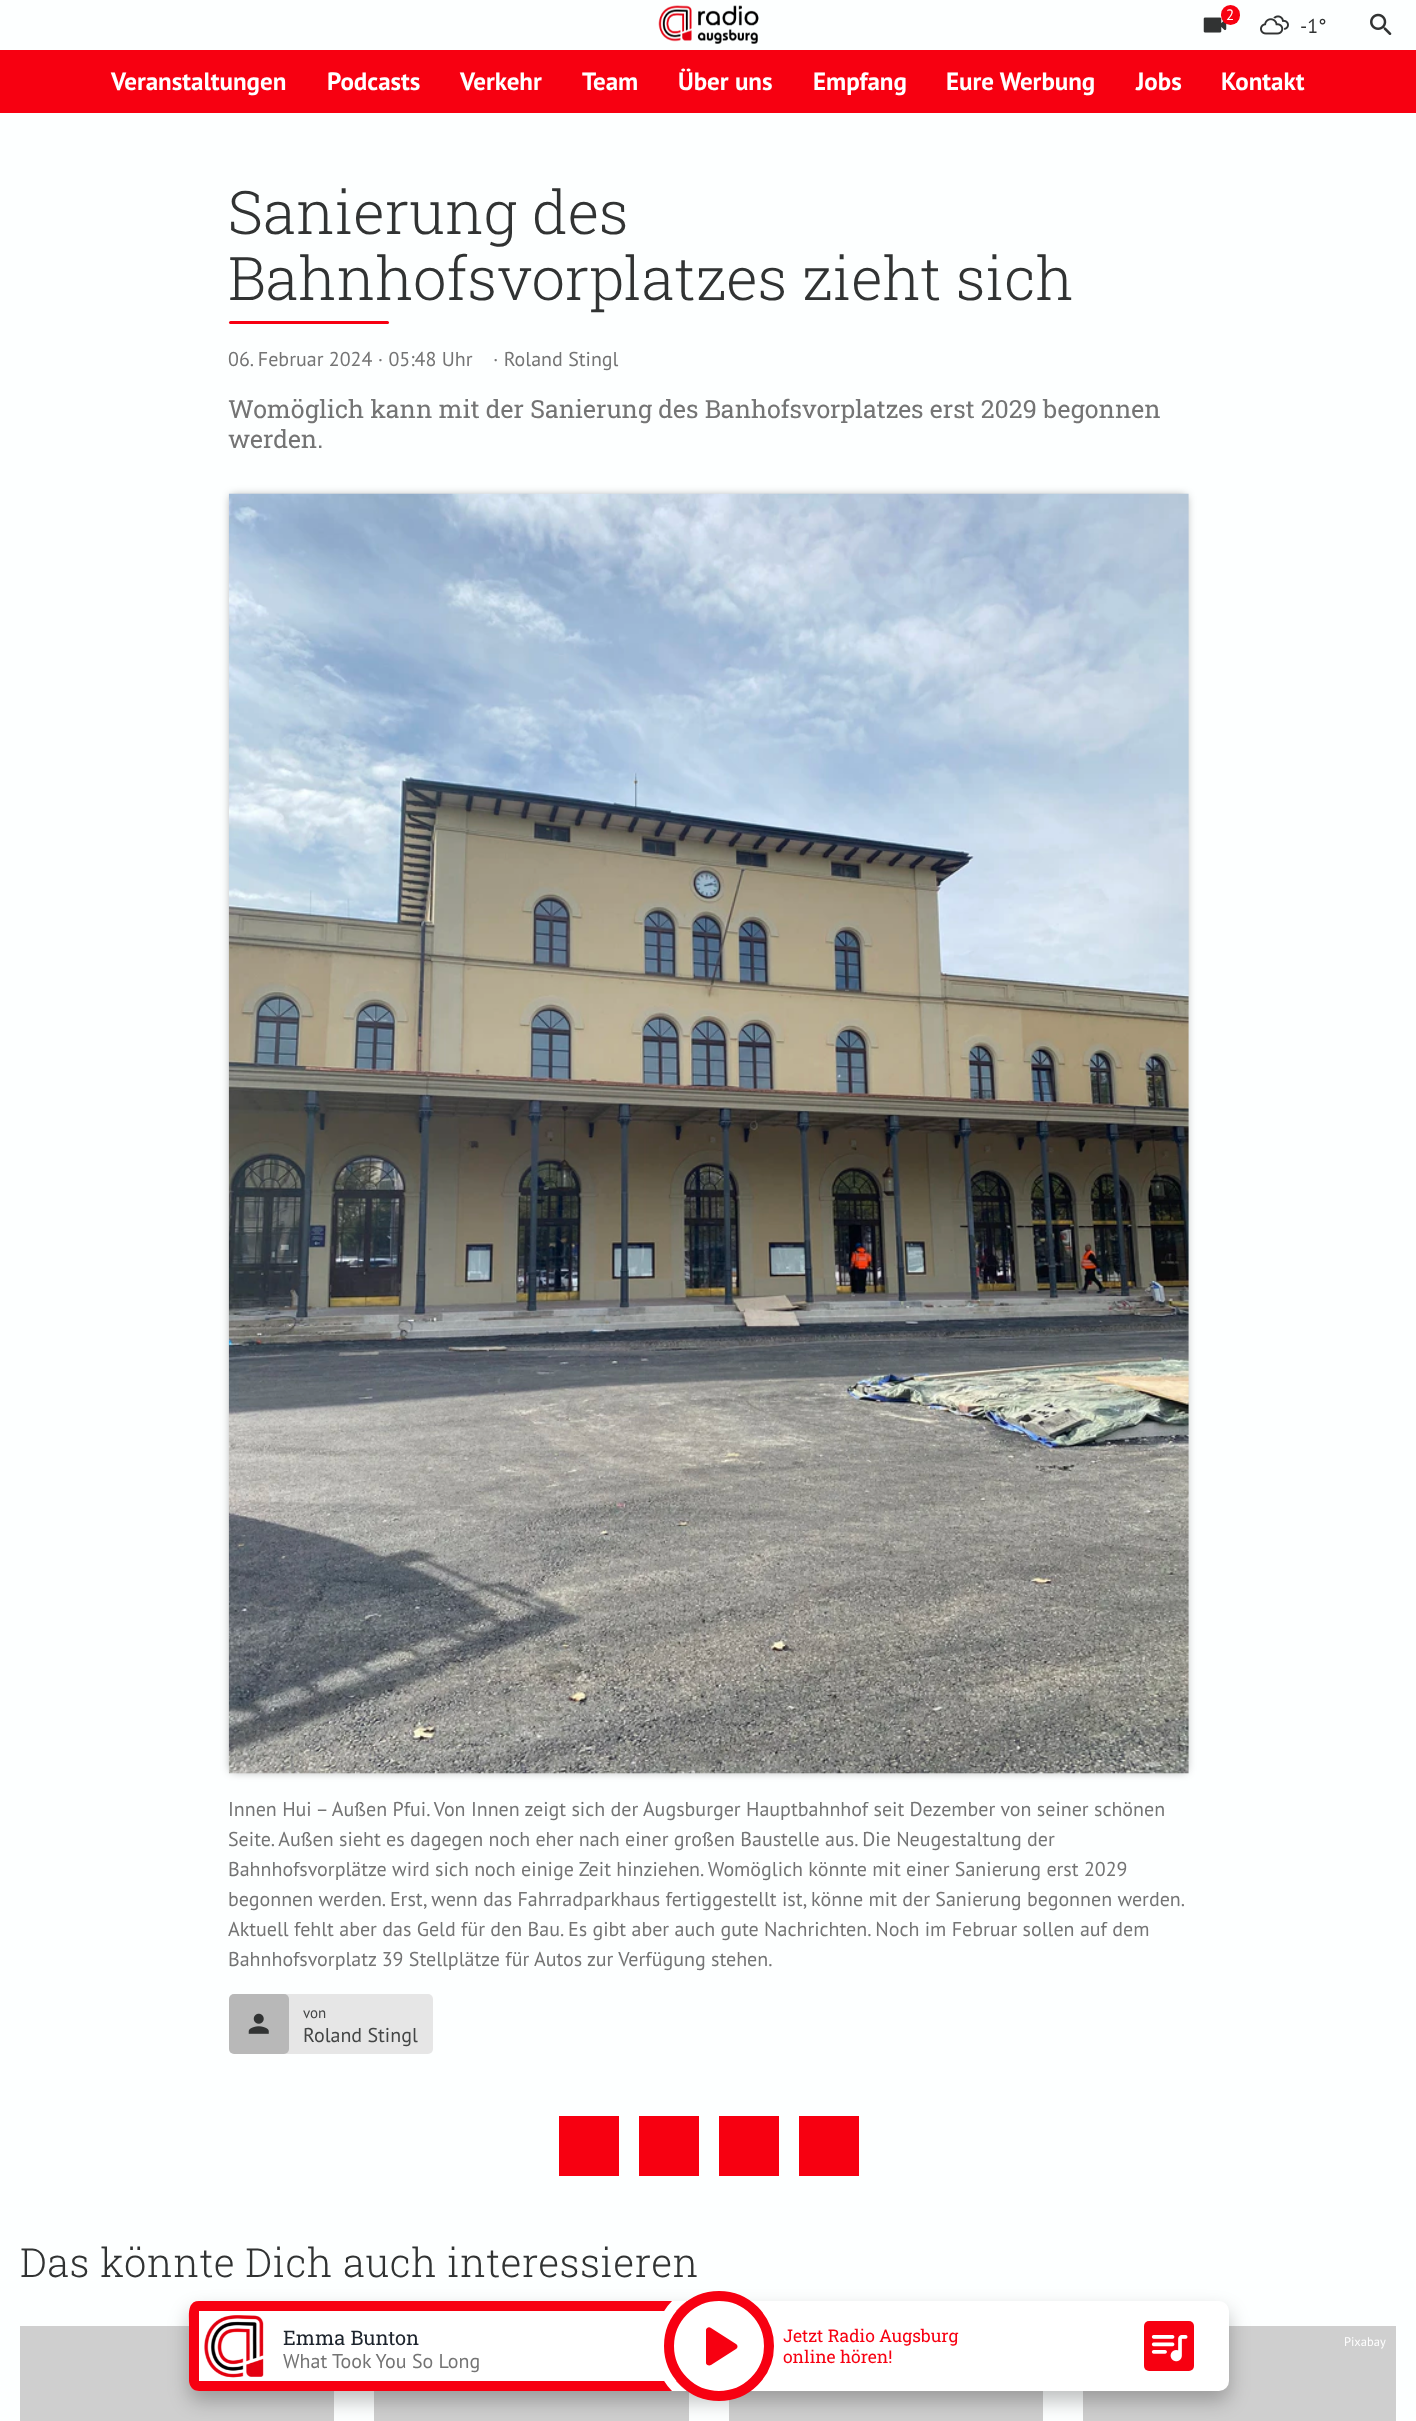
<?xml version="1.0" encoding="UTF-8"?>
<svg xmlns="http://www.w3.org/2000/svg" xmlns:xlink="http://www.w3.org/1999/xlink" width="1416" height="2421">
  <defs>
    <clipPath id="clip1"><rect x="189" y="2301" width="1040" height="90" rx="10" /></clipPath>
  </defs>
  <rect width="100%" height="100%" fill="#fdffff" />
  <image x="658" y="5" width="101" height="39" xlink:href="image1.png" />
  <image x="1203" y="17" width="24" height="16" xlink:href="image2.png" />
  <rect x="1221" y="5" width="19" height="20" rx="9.5" fill="#f70011" />
  <image x="1260" y="15" width="29" height="20" xlink:href="image3.png" />
  <image x="1370" y="13" width="22" height="22" xlink:href="image4.png" />
  <rect y="50" width="1416" height="63" fill="#f70011" />
  <rect x="229" y="321" width="160" height="3" rx="1.5" fill="#f70011" />
  <rect x="231" y="496" width="955" height="1275" fill="#000000" fill-opacity="0.4" filter="blur(5px)" />
  <image x="228" y="493" width="961" height="1281" xlink:href="image5.png" />
  <rect x="229" y="1994" width="204" height="60" rx="5" fill="#e6e6e6" />
  <rect x="229" y="1994" width="60" height="60" rx="5" fill="#000000" fill-opacity="0.2" />
  <image x="248" y="2013" width="21" height="21" xlink:href="image6.png" />
  <rect x="559" y="2116" width="60" height="60" fill="#f70011" />
  <rect x="639" y="2116" width="60" height="60" fill="#f70011" />
  <rect x="719" y="2116" width="60" height="60" fill="#f70011" />
  <rect x="799" y="2116" width="60" height="60" fill="#f70011" />
  <rect x="20" y="2326" width="314" height="95" fill="#cfcfcf" />
  <rect x="1083" y="2326" width="313" height="95" fill="#cfcfcf" />
  <rect x="374" y="2391" width="315" height="30" fill="#cfcfcf" />
  <rect x="729" y="2391" width="314" height="30" fill="#cfcfcf" />
  <rect x="189" y="2311" width="1040" height="90" rx="10" fill="#000000" fill-opacity="0.25" filter="blur(10px)" />
  <rect x="189" y="2301" width="1040" height="90" rx="10" fill="#ffffff" />
  <image x="204" y="2315" width="60" height="63" xlink:href="image7.png" />
  <rect x="1144" y="2321" width="50" height="50" rx="5" fill="#f70011" />
  <image x="1151" y="2335" width="37" height="27" xlink:href="image8.png" />
  <text x="1226" y="20" style="font-family: PT Sans; font-size: 15px; fill: #ffffff">2</text>
  <text x="1300" y="33" style="font-family: PT Sans; font-size: 20px; fill: #313333">-1°</text>
  <text x="111" y="90" style="font-family: PT Sans; font-size: 25px; font-weight: bold; fill: #ffffff">Veranstaltungen</text>
  <text x="327" y="90" style="font-family: PT Sans; font-size: 25px; font-weight: bold; fill: #ffffff">Podcasts</text>
  <text x="460" y="90" style="font-family: PT Sans; font-size: 25px; font-weight: bold; fill: #ffffff">Verkehr</text>
  <text x="582" y="90" style="font-family: PT Sans; font-size: 25px; font-weight: bold; fill: #ffffff">Team</text>
  <text x="678" y="90" style="font-family: PT Sans; font-size: 25px; font-weight: bold; fill: #ffffff">Über uns</text>
  <text x="813" y="90" style="font-family: PT Sans; font-size: 25px; font-weight: bold; fill: #ffffff">Empfang</text>
  <text x="946" y="90" style="font-family: PT Sans; font-size: 25px; font-weight: bold; fill: #ffffff">Eure Werbung</text>
  <text x="1136" y="90" style="font-family: PT Sans; font-size: 25px; font-weight: bold; fill: #ffffff">Jobs</text>
  <text x="1221" y="90" style="font-family: PT Sans; font-size: 25px; font-weight: bold; fill: #ffffff">Kontakt</text>
  <text x="228" y="234" style="font-family: Roboto Slab; font-size: 60px; font-weight: 300; fill: #313333">Sanierung des</text>
  <text x="228" y="300" style="font-family: Roboto Slab; font-size: 60px; font-weight: 300; fill: #313333">Bahnhofsvorplatzes zieht sich</text>
  <text x="228" y="366" style="font-family: PT Sans; font-size: 20px; fill: #747474">06. Februar 2024 · 05:48 Uhr</text>
  <text x="493" y="366" style="font-family: PT Sans; font-size: 20px; fill: #747474">· Roland Stingl</text>
  <text x="228" y="418" style="font-family: Roboto Slab; font-size: 25px; fill: #747474">Womöglich kann mit der Sanierung des Banhofsvorplatzes erst 2029 begonnen</text>
  <text x="228" y="448" style="font-family: Roboto Slab; font-size: 25px; fill: #747474">werden.</text>
  <text x="228" y="1816" style="font-family: PT Sans; font-size: 20px; fill: #747474">Innen Hui – Außen Pfui. Von Innen zeigt sich der Augsburger Hauptbahnhof seit Dezember von seiner schönen</text>
  <text x="228" y="1846" style="font-family: PT Sans; font-size: 20px; fill: #747474">Seite. Außen sieht es dagegen noch eher nach einer großen Baustelle aus. Die Neugestaltung der</text>
  <text x="228" y="1876" style="font-family: PT Sans; font-size: 20px; fill: #747474">Bahnhofsvorplätze wird sich noch einige Zeit hinziehen. Womöglich könnte mit einer Sanierung erst 2029</text>
  <text x="228" y="1906" style="font-family: PT Sans; font-size: 20px; fill: #747474">begonnen werden. Erst, wenn das Fahrradparkhaus fertiggestellt ist, könne mit der Sanierung begonnen werden.</text>
  <text x="228" y="1936" style="font-family: PT Sans; font-size: 20px; fill: #747474">Aktuell fehlt aber das Geld für den Bau. Es gibt aber auch gute Nachrichten. Noch im Februar sollen auf dem</text>
  <text x="228" y="1966" style="font-family: PT Sans; font-size: 20px; fill: #747474">Bahnhofsvorplatz 39 Stellplätze für Autos zur Verfügung stehen.</text>
  <text x="303" y="2018" style="font-family: PT Sans; font-size: 15px; fill: #434545">von</text>
  <text x="303" y="2042" style="font-family: PT Sans; font-size: 20px; fill: #434545">Roland Stingl</text>
  <text x="20" y="2277" style="font-family: Roboto Slab; font-size: 40px; font-weight: 300; letter-spacing: 0.5px; fill: #313333">Das könnte Dich auch interessieren</text>
  <text x="1344" y="2346" style="font-family: PT Sans; font-size: 12.5px; fill: #ffffff">Pixabay</text>
  <text x="283" y="2345" style="font-family: Roboto Slab; font-size: 20px; fill: #1d242d">Emma Bunton</text>
  <text x="283" y="2368" style="font-family: PT Sans; font-size: 20px; fill: #747474">What Took You So Long</text>
  <path d="M 199 2301 c -12 0 -10 14 -10 22 v 58 c 0 5 4 10 10 10 h 500 c 5 0 10 -5 10 -10 h -510 v -70 h 510 c 0 -5 -5 -10 -10 -10 z" fill="#f70011" />
  <path d="M 672 2391 c -24 -25 -24 -65 0 -90 h 15 c -31 22 -31 68 0 90 z m 94 -90 c 24 25 24 65 0 90 h -15 c 31 -22 31 -68 0 -90 z" fill="#ffffff" fill-rule="evenodd" />
  <g clip-path="url(#clip1)">
    <circle cx="719" cy="2346" r="55" fill="#ffffff" />
  </g>
  <path d="M 706 2330 v 33 c 0 2 3 3 5 2 l 25 -16 c 2 -1 2 -4 0 -5 l -25 -16 c -2 -2 -5 0 -5 2 z" fill="#f70011" />
  <circle cx="719" cy="2346" r="50" fill="none" stroke="#f70011" stroke-width="10" />
  <text x="783" y="2342" style="font-family: Roboto Slab; font-size: 17.5px; fill: #f70011">Jetzt Radio Augsburg</text>
  <text x="783" y="2363" style="font-family: Roboto Slab; font-size: 17.5px; fill: #f70011">online hören!</text>
</svg>
